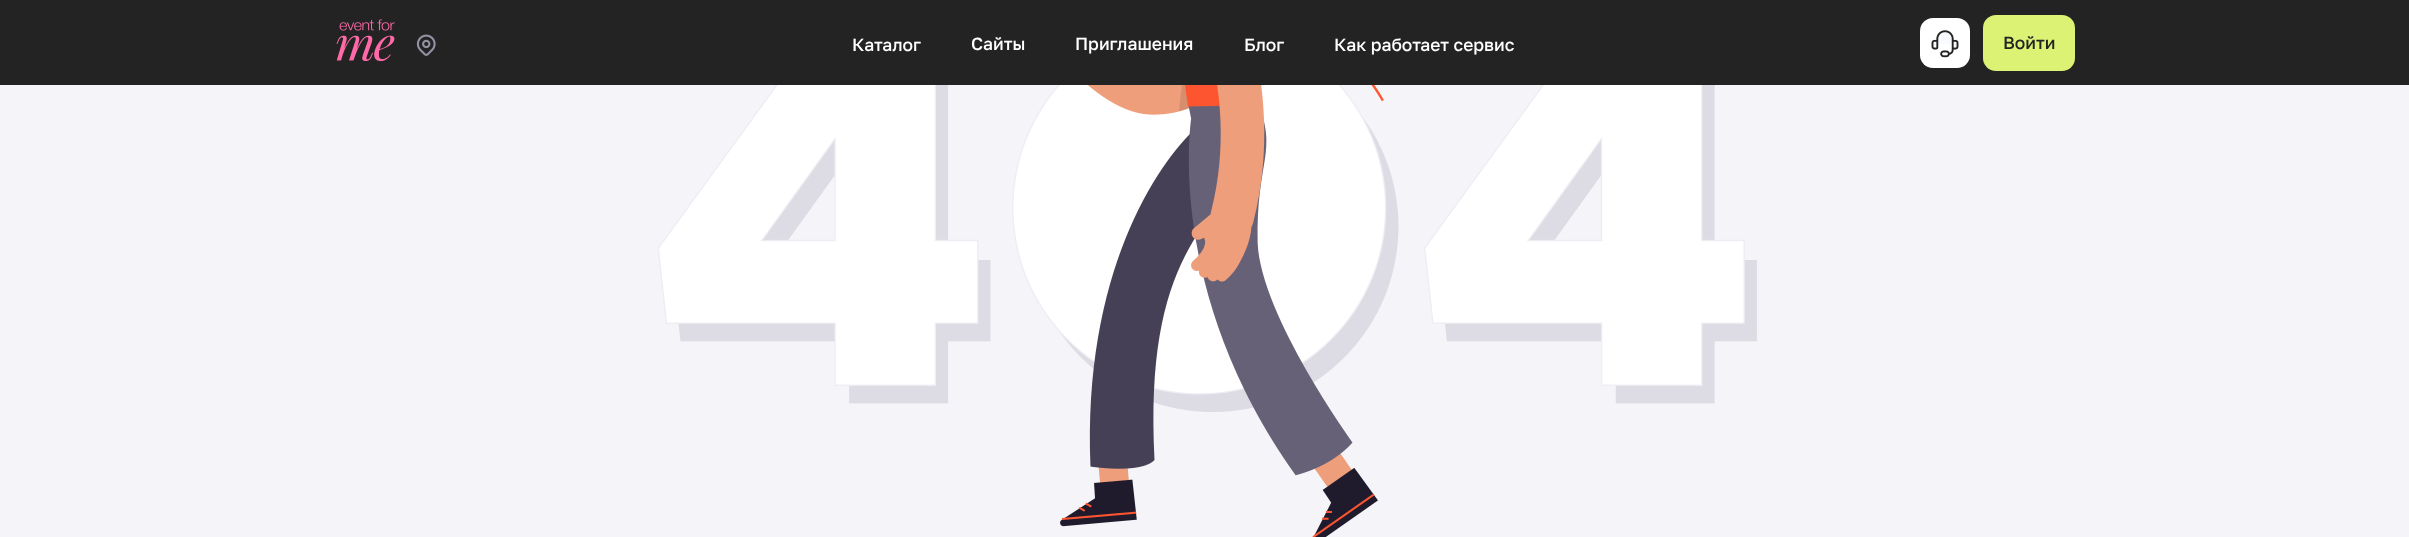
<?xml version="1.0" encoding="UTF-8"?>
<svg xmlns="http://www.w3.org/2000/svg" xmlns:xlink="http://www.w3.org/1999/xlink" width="2409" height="537">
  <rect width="100%" height="100%" fill="#f5f4f8" />
  <rect width="2409" height="85" fill="#222322" />
  <image x="336" y="19" width="59" height="42" xlink:href="image1.png" />
  <image x="416" y="34" width="20" height="22" xlink:href="image2.png" />
  <rect x="1920" y="18" width="50" height="50" rx="13" fill="#ffffff" />
  <image x="1931" y="30" width="28" height="28" xlink:href="image3.png" />
  <rect x="1983" y="15" width="92" height="56" rx="13" fill="#dbf275" />
  <image x="658" y="85" width="1099" height="452" xlink:href="image4.png" />
  <text x="852" y="51" style="font-family: Golos Text; font-size: 17.5px; font-weight: 500; fill: #ffffff">Каталог</text>
  <text x="971" y="50" style="font-family: Golos Text; font-size: 17.5px; font-weight: 500; fill: #ffffff">Сайты</text>
  <text x="1075" y="50" style="font-family: Golos Text; font-size: 17.5px; font-weight: 500; fill: #ffffff">Приглашения</text>
  <text x="1244" y="51" style="font-family: Golos Text; font-size: 17.5px; font-weight: 500; fill: #ffffff">Блог</text>
  <text x="1334" y="51" style="font-family: Golos Text; font-size: 17.5px; font-weight: 500; fill: #ffffff">Как работает сервис</text>
  <text x="2003" y="49" style="font-family: Golos Text; font-size: 17.5px; font-weight: 500; fill: #222322">Войти</text>
</svg>
